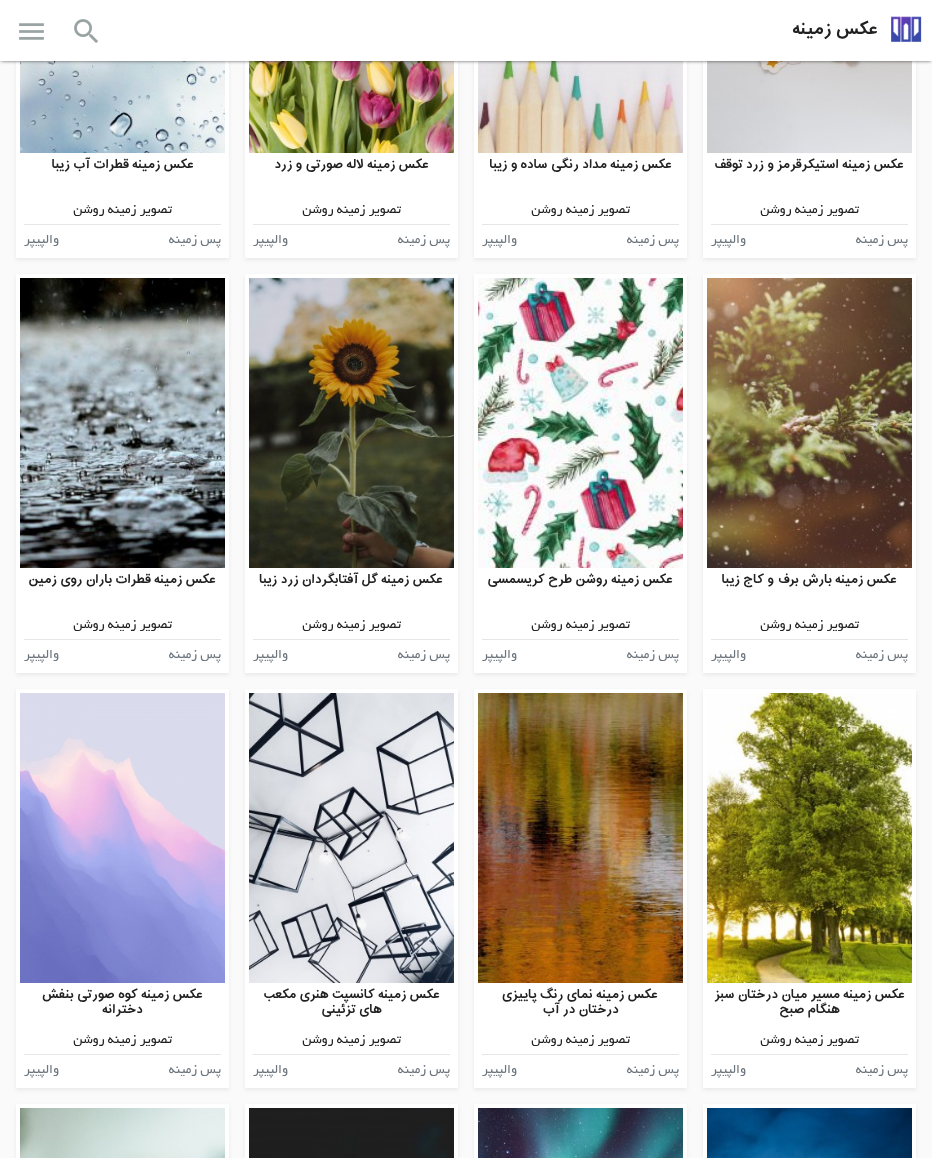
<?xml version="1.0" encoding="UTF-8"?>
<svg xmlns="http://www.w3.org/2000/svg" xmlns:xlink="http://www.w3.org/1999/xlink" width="932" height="1158">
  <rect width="100%" height="100%" fill="#fafafa" />
  <rect x="703" y="-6" width="213" height="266" fill="#000000" fill-opacity="0.07" filter="blur(2px)" />
  <rect x="703" y="61" width="213" height="197" fill="#ffffff" />
  <image x="707" y="61" width="205" height="92" xlink:href="image4.png" />
  <rect x="474" y="-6" width="213" height="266" fill="#000000" fill-opacity="0.07" filter="blur(2px)" />
  <rect x="474" y="61" width="213" height="197" fill="#ffffff" />
  <image x="478" y="61" width="205" height="92" xlink:href="image5.png" />
  <rect x="245" y="-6" width="213" height="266" fill="#000000" fill-opacity="0.07" filter="blur(2px)" />
  <rect x="245" y="61" width="213" height="197" fill="#ffffff" />
  <image x="249" y="61" width="205" height="92" xlink:href="image6.png" />
  <rect x="16" y="-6" width="213" height="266" fill="#000000" fill-opacity="0.07" filter="blur(2px)" />
  <rect x="16" y="61" width="213" height="197" fill="#ffffff" />
  <image x="20" y="61" width="205" height="92" xlink:href="image7.png" />
  <rect x="1" y="1" width="930" height="59" fill="#000000" filter="blur(2px)" />
  <rect width="932" height="61" fill="#ffffff" />
  <image x="891" y="16" width="31" height="26" xlink:href="image1.png" />
  <image x="74" y="19" width="24" height="24" xlink:href="image2.png" />
  <image x="19" y="23" width="25" height="17" xlink:href="image3.png" />
  <rect x="711" y="224" width="197" height="1" fill="#e6e6e6" />
  <rect x="482" y="224" width="197" height="1" fill="#e6e6e6" />
  <rect x="253" y="224" width="197" height="1" fill="#e6e6e6" />
  <rect x="24" y="224" width="197" height="1" fill="#e6e6e6" />
  <rect x="703" y="276" width="213" height="399" fill="#000000" fill-opacity="0.07" filter="blur(2px)" />
  <rect x="703" y="274" width="213" height="399" fill="#ffffff" />
  <image x="707" y="278" width="205" height="290" xlink:href="image8.png" />
  <rect x="711" y="639" width="197" height="1" fill="#e6e6e6" />
  <rect x="474" y="276" width="213" height="399" fill="#000000" fill-opacity="0.07" filter="blur(2px)" />
  <rect x="474" y="274" width="213" height="399" fill="#ffffff" />
  <image x="478" y="278" width="205" height="290" xlink:href="image9.png" />
  <rect x="482" y="639" width="197" height="1" fill="#e6e6e6" />
  <rect x="245" y="276" width="213" height="399" fill="#000000" fill-opacity="0.07" filter="blur(2px)" />
  <rect x="245" y="274" width="213" height="399" fill="#ffffff" />
  <image x="249" y="278" width="205" height="290" xlink:href="image10.png" />
  <rect x="253" y="639" width="197" height="1" fill="#e6e6e6" />
  <rect x="16" y="276" width="213" height="399" fill="#000000" fill-opacity="0.07" filter="blur(2px)" />
  <rect x="16" y="274" width="213" height="399" fill="#ffffff" />
  <image x="20" y="278" width="205" height="290" xlink:href="image11.png" />
  <rect x="24" y="639" width="197" height="1" fill="#e6e6e6" />
  <rect x="703" y="691" width="213" height="399" fill="#000000" fill-opacity="0.07" filter="blur(2px)" />
  <rect x="703" y="689" width="213" height="399" fill="#ffffff" />
  <image x="707" y="693" width="205" height="290" xlink:href="image12.png" />
  <rect x="711" y="1054" width="197" height="1" fill="#e6e6e6" />
  <rect x="474" y="691" width="213" height="399" fill="#000000" fill-opacity="0.07" filter="blur(2px)" />
  <rect x="474" y="689" width="213" height="399" fill="#ffffff" />
  <image x="478" y="693" width="205" height="290" xlink:href="image13.png" />
  <rect x="482" y="1054" width="197" height="1" fill="#e6e6e6" />
  <rect x="245" y="691" width="213" height="399" fill="#000000" fill-opacity="0.07" filter="blur(2px)" />
  <rect x="245" y="689" width="213" height="399" fill="#ffffff" />
  <image x="249" y="693" width="205" height="290" xlink:href="image14.png" />
  <rect x="253" y="1054" width="197" height="1" fill="#e6e6e6" />
  <rect x="16" y="691" width="213" height="399" fill="#000000" fill-opacity="0.07" filter="blur(2px)" />
  <rect x="16" y="689" width="213" height="399" fill="#ffffff" />
  <image x="20" y="693" width="205" height="290" xlink:href="image15.png" />
  <rect x="24" y="1054" width="197" height="1" fill="#e6e6e6" />
  <rect x="703" y="1106" width="213" height="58" fill="#000000" fill-opacity="0.07" filter="blur(2px)" />
  <rect x="703" y="1104" width="213" height="54" fill="#ffffff" />
  <image x="707" y="1108" width="205" height="50" xlink:href="image16.png" />
  <rect x="474" y="1106" width="213" height="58" fill="#000000" fill-opacity="0.07" filter="blur(2px)" />
  <rect x="474" y="1104" width="213" height="54" fill="#ffffff" />
  <image x="478" y="1108" width="205" height="50" xlink:href="image17.png" />
  <rect x="245" y="1106" width="213" height="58" fill="#000000" fill-opacity="0.07" filter="blur(2px)" />
  <rect x="245" y="1104" width="213" height="54" fill="#ffffff" />
  <image x="249" y="1108" width="205" height="50" xlink:href="image18.png" />
  <rect x="16" y="1106" width="213" height="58" fill="#000000" fill-opacity="0.07" filter="blur(2px)" />
  <rect x="16" y="1104" width="213" height="54" fill="#ffffff" />
  <image x="20" y="1108" width="205" height="50" xlink:href="image19.png" />
  <text x="878" y="34" style="font-family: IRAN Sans; font-size: 18px; font-weight: bold; direction: rtl; fill: #212121">عکس زمینه</text>
  <text x="904" y="168" style="font-family: IRAN Sans; font-size: 13px; font-weight: bold; direction: rtl; fill: #212121">عکس زمینه استیکرقرمز و زرد توقف</text>
  <text x="859" y="213" style="font-family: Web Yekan; font-size: 14px; direction: rtl; fill: #212121">تصویر زمینه روشن</text>
  <text x="908" y="243" style="font-family: Web Yekan; font-size: 14px; direction: rtl; fill: #6c757d">پس زمینه</text>
  <text x="746" y="243" style="font-family: Web Yekan; font-size: 14px; direction: rtl; fill: #6c757d">والپیپر</text>
  <text x="672" y="168" style="font-family: IRAN Sans; font-size: 13px; font-weight: bold; direction: rtl; fill: #212121">عکس زمینه مداد رنگی ساده و زیبا</text>
  <text x="630" y="213" style="font-family: Web Yekan; font-size: 14px; direction: rtl; fill: #212121">تصویر زمینه روشن</text>
  <text x="679" y="243" style="font-family: Web Yekan; font-size: 14px; direction: rtl; fill: #6c757d">پس زمینه</text>
  <text x="517" y="243" style="font-family: Web Yekan; font-size: 14px; direction: rtl; fill: #6c757d">والپیپر</text>
  <text x="429" y="168" style="font-family: IRAN Sans; font-size: 13px; font-weight: bold; direction: rtl; fill: #212121">عکس زمینه لاله صورتی و زرد</text>
  <text x="401" y="213" style="font-family: Web Yekan; font-size: 14px; direction: rtl; fill: #212121">تصویر زمینه روشن</text>
  <text x="450" y="243" style="font-family: Web Yekan; font-size: 14px; direction: rtl; fill: #6c757d">پس زمینه</text>
  <text x="288" y="243" style="font-family: Web Yekan; font-size: 14px; direction: rtl; fill: #6c757d">والپیپر</text>
  <text x="194" y="168" style="font-family: IRAN Sans; font-size: 13px; font-weight: bold; direction: rtl; fill: #212121">عکس زمینه قطرات آب زیبا</text>
  <text x="172" y="213" style="font-family: Web Yekan; font-size: 14px; direction: rtl; fill: #212121">تصویر زمینه روشن</text>
  <text x="221" y="243" style="font-family: Web Yekan; font-size: 14px; direction: rtl; fill: #6c757d">پس زمینه</text>
  <text x="59" y="243" style="font-family: Web Yekan; font-size: 14px; direction: rtl; fill: #6c757d">والپیپر</text>
  <text x="897" y="583" style="font-family: IRAN Sans; font-size: 13px; font-weight: bold; direction: rtl; fill: #212121">عکس زمینه بارش برف و کاج زیبا</text>
  <text x="859" y="628" style="font-family: Web Yekan; font-size: 14px; direction: rtl; fill: #212121">تصویر زمینه روشن</text>
  <text x="908" y="658" style="font-family: Web Yekan; font-size: 14px; direction: rtl; fill: #6c757d">پس زمینه</text>
  <text x="746" y="658" style="font-family: Web Yekan; font-size: 14px; direction: rtl; fill: #6c757d">والپیپر</text>
  <text x="673" y="583" style="font-family: IRAN Sans; font-size: 13px; font-weight: bold; direction: rtl; fill: #212121">عکس زمینه روشن طرح کریسمسی</text>
  <text x="630" y="628" style="font-family: Web Yekan; font-size: 14px; direction: rtl; fill: #212121">تصویر زمینه روشن</text>
  <text x="679" y="658" style="font-family: Web Yekan; font-size: 14px; direction: rtl; fill: #6c757d">پس زمینه</text>
  <text x="517" y="658" style="font-family: Web Yekan; font-size: 14px; direction: rtl; fill: #6c757d">والپیپر</text>
  <text x="443" y="583" style="font-family: IRAN Sans; font-size: 13px; font-weight: bold; direction: rtl; fill: #212121">عکس زمینه گل آفتابگردان زرد زیبا</text>
  <text x="401" y="628" style="font-family: Web Yekan; font-size: 14px; direction: rtl; fill: #212121">تصویر زمینه روشن</text>
  <text x="450" y="658" style="font-family: Web Yekan; font-size: 14px; direction: rtl; fill: #6c757d">پس زمینه</text>
  <text x="288" y="658" style="font-family: Web Yekan; font-size: 14px; direction: rtl; fill: #6c757d">والپیپر</text>
  <text x="216" y="583" style="font-family: IRAN Sans; font-size: 13px; font-weight: bold; direction: rtl; fill: #212121">عکس زمینه قطرات باران روی زمین</text>
  <text x="172" y="628" style="font-family: Web Yekan; font-size: 14px; direction: rtl; fill: #212121">تصویر زمینه روشن</text>
  <text x="221" y="658" style="font-family: Web Yekan; font-size: 14px; direction: rtl; fill: #6c757d">پس زمینه</text>
  <text x="59" y="658" style="font-family: Web Yekan; font-size: 14px; direction: rtl; fill: #6c757d">والپیپر</text>
  <text x="905" y="998" style="font-family: IRAN Sans; font-size: 13px; font-weight: bold; direction: rtl; fill: #212121">عکس زمینه مسیر میان درختان سبز</text>
  <text x="840" y="1013" style="font-family: IRAN Sans; font-size: 13px; font-weight: bold; direction: rtl; fill: #212121">هنگام صبح</text>
  <text x="859" y="1043" style="font-family: Web Yekan; font-size: 14px; direction: rtl; fill: #212121">تصویر زمینه روشن</text>
  <text x="908" y="1073" style="font-family: Web Yekan; font-size: 14px; direction: rtl; fill: #6c757d">پس زمینه</text>
  <text x="746" y="1073" style="font-family: Web Yekan; font-size: 14px; direction: rtl; fill: #6c757d">والپیپر</text>
  <text x="658" y="998" style="font-family: IRAN Sans; font-size: 13px; font-weight: bold; direction: rtl; fill: #212121">عکس زمینه نمای رنگ پاییزی</text>
  <text x="619" y="1013" style="font-family: IRAN Sans; font-size: 13px; font-weight: bold; direction: rtl; fill: #212121">درختان در آب</text>
  <text x="630" y="1043" style="font-family: Web Yekan; font-size: 14px; direction: rtl; fill: #212121">تصویر زمینه روشن</text>
  <text x="679" y="1073" style="font-family: Web Yekan; font-size: 14px; direction: rtl; fill: #6c757d">پس زمینه</text>
  <text x="517" y="1073" style="font-family: Web Yekan; font-size: 14px; direction: rtl; fill: #6c757d">والپیپر</text>
  <text x="440" y="998" style="font-family: IRAN Sans; font-size: 13px; font-weight: bold; direction: rtl; fill: #212121">عکس زمینه کانسپت هنری مکعب</text>
  <text x="382" y="1013" style="font-family: IRAN Sans; font-size: 13px; font-weight: bold; direction: rtl; fill: #212121">های تزئینی</text>
  <text x="401" y="1043" style="font-family: Web Yekan; font-size: 14px; direction: rtl; fill: #212121">تصویر زمینه روشن</text>
  <text x="450" y="1073" style="font-family: Web Yekan; font-size: 14px; direction: rtl; fill: #6c757d">پس زمینه</text>
  <text x="288" y="1073" style="font-family: Web Yekan; font-size: 14px; direction: rtl; fill: #6c757d">والپیپر</text>
  <text x="203" y="998" style="font-family: IRAN Sans; font-size: 13px; font-weight: bold; direction: rtl; fill: #212121">عکس زمینه کوه صورتی بنفش</text>
  <text x="143" y="1013" style="font-family: IRAN Sans; font-size: 13px; font-weight: bold; direction: rtl; fill: #212121">دخترانه</text>
  <text x="172" y="1043" style="font-family: Web Yekan; font-size: 14px; direction: rtl; fill: #212121">تصویر زمینه روشن</text>
  <text x="221" y="1073" style="font-family: Web Yekan; font-size: 14px; direction: rtl; fill: #6c757d">پس زمینه</text>
  <text x="59" y="1073" style="font-family: Web Yekan; font-size: 14px; direction: rtl; fill: #6c757d">والپیپر</text>
</svg>
